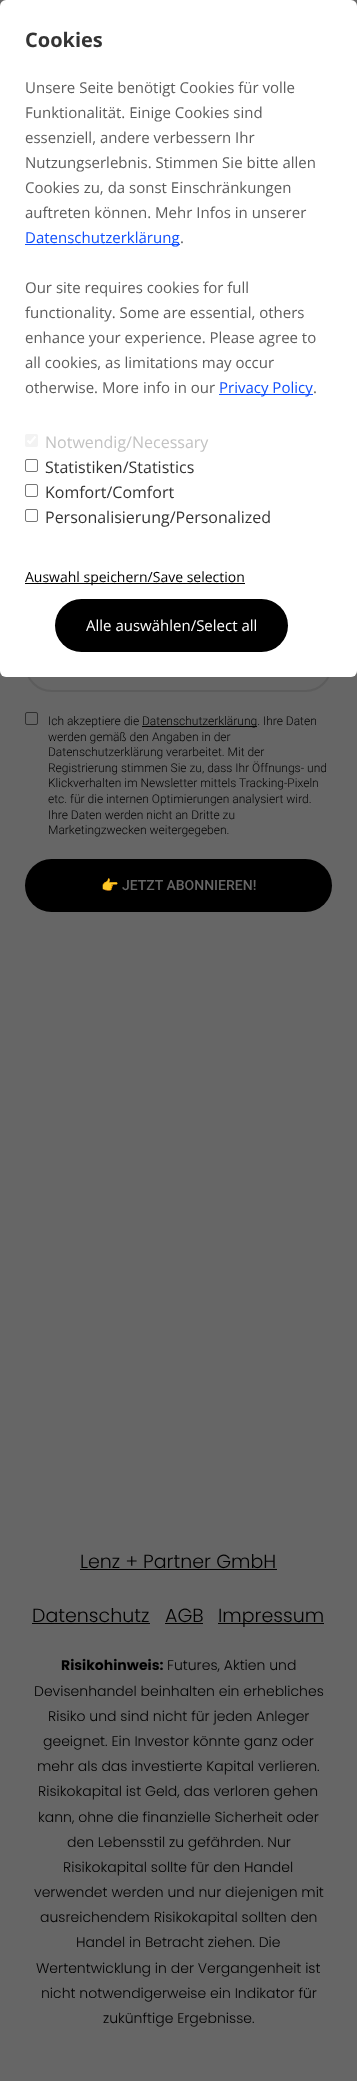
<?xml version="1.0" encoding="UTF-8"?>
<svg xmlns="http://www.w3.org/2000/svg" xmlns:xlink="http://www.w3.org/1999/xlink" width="357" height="2081">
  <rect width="100%" height="100%" fill="#666666" />
  <rect x="26" y="640" width="305" height="51" rx="25.5" fill="none" stroke="#5c5c5c" stroke-width="2" />
  <rect width="357" height="677" rx="6" fill="#ffffff" />
  <rect x="25" y="244" width="155" height="1" fill="#0f4efb" />
  <rect x="219" y="394" width="94" height="1" fill="#0f4efb" />
  <rect x="25" y="434" width="13" height="13" rx="2" fill="#f3f3f3" />
  <path d="M 27.5 440.5 l 2.5 2.5 l 5.5 -6.5" fill="none" stroke="#ffffff" stroke-width="2.1" />
  <rect x="25.5" y="459.5" width="12" height="12" rx="1.5" fill="none" stroke="#767676" />
  <rect x="25.5" y="484.5" width="12" height="12" rx="1.5" fill="none" stroke="#767676" />
  <rect x="25.5" y="509.5" width="12" height="12" rx="1.5" fill="none" stroke="#767676" />
  <rect x="25" y="583" width="220" height="1" fill="#000000" />
  <rect x="55" y="599" width="233" height="53" rx="26.5" fill="#000000" />
  <rect x="25.5" y="712.5" width="12" height="12" rx="1.5" fill="none" stroke="#2f2f2f" />
  <rect x="142" y="726" width="115" height="1" fill="#000000" />
  <rect x="25" y="859" width="307" height="53" rx="26.5" fill="#000000" />
  <rect x="80" y="1569" width="197" height="1" fill="#000000" />
  <rect x="32" y="1623" width="118" height="1" fill="#000000" />
  <rect x="165" y="1623" width="38" height="1" fill="#000000" />
  <rect x="218" y="1623" width="106" height="1" fill="#000000" />
  <text x="25" y="47" style="font-family: Open Sans; font-size: 20px; font-weight: bold; fill: #343434">Cookies</text>
  <text x="25" y="93" style="font-family: Open Sans; font-size: 15px; fill: #5c5c5c">Unsere Seite benötigt Cookies für volle</text>
  <text x="25" y="118" style="font-family: Open Sans; font-size: 15px; fill: #5c5c5c">Funktionalität. Einige Cookies sind</text>
  <text x="25" y="143" style="font-family: Open Sans; font-size: 15px; fill: #5c5c5c">essenziell, andere verbessern Ihr</text>
  <text x="25" y="168" style="font-family: Open Sans; font-size: 15px; fill: #5c5c5c">Nutzungserlebnis. Stimmen Sie bitte allen</text>
  <text x="25" y="193" style="font-family: Open Sans; font-size: 15px; fill: #5c5c5c">Cookies zu, da sonst Einschränkungen</text>
  <text x="25" y="218" style="font-family: Open Sans; font-size: 15px; fill: #5c5c5c">auftreten können. Mehr Infos in unserer</text>
  <text x="25" y="243" style="font-family: Open Sans; font-size: 15px; fill: #0f4efb">Datenschutzerklärung</text>
  <text x="180" y="243" style="font-family: Open Sans; font-size: 15px; fill: #5c5c5c">.</text>
  <text x="25" y="293" style="font-family: Open Sans; font-size: 15px; fill: #5c5c5c">Our site requires cookies for full</text>
  <text x="25" y="318" style="font-family: Open Sans; font-size: 15px; fill: #5c5c5c">functionality. Some are essential, others</text>
  <text x="25" y="343" style="font-family: Open Sans; font-size: 15px; fill: #5c5c5c">enhance your experience. Please agree to</text>
  <text x="25" y="368" style="font-family: Open Sans; font-size: 15px; fill: #5c5c5c">all cookies, as limitations may occur</text>
  <text x="25" y="393" style="font-family: Open Sans; font-size: 15px; fill: #5c5c5c">otherwise. More info in our</text>
  <text x="219" y="393" style="font-family: Open Sans; font-size: 15px; fill: #0f4efb">Privacy Policy</text>
  <text x="313" y="393" style="font-family: Open Sans; font-size: 15px; fill: #5c5c5c">.</text>
  <text x="45" y="448" style="font-family: Open Sans; font-size: 16px; fill: #c2c2c2">Notwendig/Necessary</text>
  <text x="45" y="473" style="font-family: Open Sans; font-size: 16px; fill: #343434">Statistiken/Statistics</text>
  <text x="45" y="498" style="font-family: Open Sans; font-size: 16px; fill: #343434">Komfort/Comfort</text>
  <text x="45" y="523" style="font-family: Open Sans; font-size: 16px; fill: #343434">Personalisierung/Personalized</text>
  <text x="25" y="582" style="font-family: Open Sans; font-size: 14px; fill: #000000">Auswahl speichern/Save selection</text>
  <text x="86" y="631" style="font-family: Open Sans; font-size: 15px; fill: #ffffff">Alle auswählen/Select all</text>
  <text x="48" y="725" style="font-family: Roboto; font-size: 12px; font-weight: 300; fill: #000000">Ich akzeptiere die</text>
  <text x="142" y="725" style="font-family: Roboto; font-size: 12px; font-weight: 300; fill: #000000">Datenschutzerklärung. Ihre Daten</text>
  <text x="48" y="741" style="font-family: Roboto; font-size: 12px; font-weight: 300; fill: #000000">werden gemäß den Angaben in der</text>
  <text x="48" y="756" style="font-family: Roboto; font-size: 12px; font-weight: 300; fill: #000000">Datenschutzerklärung verarbeitet. Mit der</text>
  <text x="48" y="772" style="font-family: Roboto; font-size: 12px; font-weight: 300; fill: #000000">Registrierung stimmen Sie zu, dass Ihr Öffnungs- und</text>
  <text x="48" y="787" style="font-family: Roboto; font-size: 12px; font-weight: 300; fill: #000000">Klickverhalten im Newsletter mittels Tracking-Pixeln</text>
  <text x="48" y="803" style="font-family: Roboto; font-size: 12px; font-weight: 300; fill: #000000">etc. für die internen Optimierungen analysiert wird.</text>
  <text x="48" y="819" style="font-family: Roboto; font-size: 12px; font-weight: 300; fill: #000000">Ihre Daten werden nicht an Dritte zu</text>
  <text x="48" y="834" style="font-family: Roboto; font-size: 12px; font-weight: 300; fill: #000000">Marketingzwecken weitergegeben.</text>
  <text x="101" y="890" style="font-family: Noto Color Emoji; font-size: 14px; fill: #666666">👉</text>
  <text x="122" y="890" style="font-family: Roboto; font-size: 14px; font-weight: 500; fill: #666666">JETZT ABONNIEREN!</text>
  <text x="80" y="1568" style="font-family: Poppins; font-size: 19px; font-weight: 300; fill: #000000">Lenz + Partner GmbH</text>
  <text x="32" y="1622" style="font-family: Poppins; font-size: 19px; font-weight: 300; fill: #000000">Datenschutz</text>
  <text x="165" y="1622" style="font-family: Poppins; font-size: 19px; font-weight: 300; fill: #000000">AGB</text>
  <text x="218" y="1622" style="font-family: Poppins; font-size: 19px; font-weight: 300; fill: #000000">Impressum</text>
  <text x="61" y="1670" style="font-family: Poppins; font-size: 14px; font-weight: bold; fill: #000000">Risikohinweis:</text>
  <text x="167" y="1670" style="font-family: Poppins; font-size: 14px; font-weight: 300; fill: #000000">Futures, Aktien und</text>
  <text x="34" y="1696" style="font-family: Poppins; font-size: 14px; font-weight: 300; fill: #000000">Devisenhandel beinhalten ein erhebliches</text>
  <text x="48" y="1721" style="font-family: Poppins; font-size: 14px; font-weight: 300; fill: #000000">Risiko und sind nicht für jeden Anleger</text>
  <text x="43" y="1746" style="font-family: Poppins; font-size: 14px; font-weight: 300; fill: #000000">geeignet. Ein Investor könnte ganz oder</text>
  <text x="37" y="1771" style="font-family: Poppins; font-size: 14px; font-weight: 300; fill: #000000">mehr als das investierte Kapital verlieren.</text>
  <text x="38" y="1796" style="font-family: Poppins; font-size: 14px; font-weight: 300; fill: #000000">Risikokapital ist Geld, das verloren gehen</text>
  <text x="38" y="1822" style="font-family: Poppins; font-size: 14px; font-weight: 300; fill: #000000">kann, ohne die finanzielle Sicherheit oder</text>
  <text x="67" y="1847" style="font-family: Poppins; font-size: 14px; font-weight: 300; fill: #000000">den Lebensstil zu gefährden. Nur</text>
  <text x="63" y="1872" style="font-family: Poppins; font-size: 14px; font-weight: 300; fill: #000000">Risikokapital sollte für den Handel</text>
  <text x="34" y="1897" style="font-family: Poppins; font-size: 14px; font-weight: 300; fill: #000000">verwendet werden und nur diejenigen mit</text>
  <text x="40" y="1922" style="font-family: Poppins; font-size: 14px; font-weight: 300; fill: #000000">ausreichendem Risikokapital sollten den</text>
  <text x="76" y="1947" style="font-family: Poppins; font-size: 14px; font-weight: 300; fill: #000000">Handel in Betracht ziehen. Die</text>
  <text x="36" y="1973" style="font-family: Poppins; font-size: 14px; font-weight: 300; fill: #000000">Wertentwicklung in der Vergangenheit ist</text>
  <text x="41" y="1998" style="font-family: Poppins; font-size: 14px; font-weight: 300; fill: #000000">nicht notwendigerweise ein Indikator für</text>
  <text x="103" y="2023" style="font-family: Poppins; font-size: 14px; font-weight: 300; fill: #000000">zukünftige Ergebnisse.</text>
</svg>
